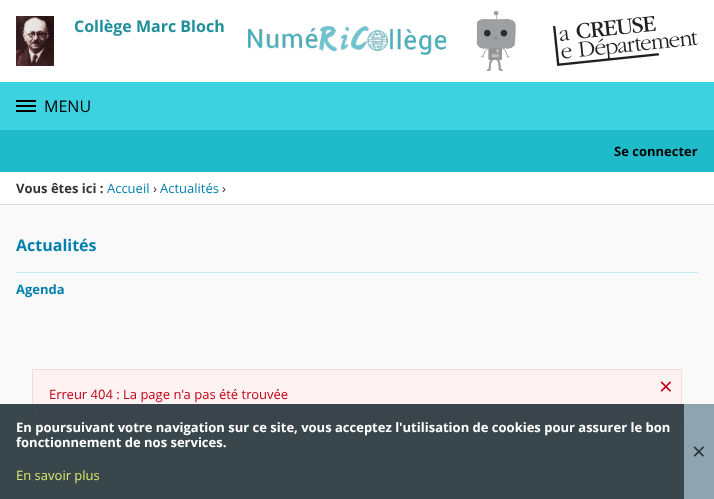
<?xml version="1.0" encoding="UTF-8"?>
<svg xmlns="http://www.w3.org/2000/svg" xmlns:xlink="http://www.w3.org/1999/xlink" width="714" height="499">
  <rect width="100%" height="100%" fill="#ffffff" />
  <image x="16" y="16" width="38" height="50" xlink:href="image1.png" />
  <image x="248" y="11" width="450" height="60" xlink:href="image2.png" />
  <rect y="82" width="714" height="48" fill="#3dd2e0" />
  <rect x="16" y="100" width="20" height="2" fill="#000000" />
  <rect x="16" y="105" width="20" height="2" fill="#000000" />
  <rect x="16" y="110" width="20" height="2" fill="#000000" />
  <rect y="130" width="714" height="42" fill="#20bbca" />
  <rect y="204" width="714" height="1" fill="#d7dee2" />
  <rect y="205" width="714" height="294" fill="#f9f9f9" />
  <rect x="16" y="272" width="682" height="1" fill="#c1edf2" />
  <rect x="32.5" y="369.5" width="649" height="49" fill="#fff2f3" stroke="#ffd8dc" />
  <rect y="404" width="684" height="95" fill="#243238" fill-opacity="0.9" />
  <rect x="684" y="404" width="30" height="95" fill="#8ea4af" />
  <text x="74" y="32" style="font-family: Open Sans; font-size: 16px; font-weight: bold; fill: #1f909b">Collège Marc Bloch</text>
  <text x="44" y="112" style="font-family: Open Sans; font-size: 16px; fill: #000000">MENU</text>
  <text x="614" y="156" style="font-family: Open Sans; font-size: 13px; font-weight: bold; fill: #000000">Se connecter</text>
  <text x="16" y="193" style="font-family: Open Sans; font-size: 13px; font-weight: bold; fill: #333333">Vous êtes ici :</text>
  <text x="107" y="193" style="font-family: Open Sans; font-size: 13px; fill: #007fad">Accueil</text>
  <text x="153" y="193" style="font-family: Open Sans; font-size: 13px; fill: #333333">›</text>
  <text x="160" y="193" style="font-family: Open Sans; font-size: 13px; fill: #007fad">Actualités</text>
  <text x="222" y="193" style="font-family: Open Sans; font-size: 13px; fill: #333333">›</text>
  <text x="16" y="251" style="font-family: Open Sans; font-size: 16px; font-weight: bold; fill: #007fad">Actualités</text>
  <text x="16" y="294" style="font-family: Open Sans; font-size: 13px; font-weight: bold; fill: #007fad">Agenda</text>
  <text x="659" y="395" style="font-family: Open Sans; font-size: 24px; fill: #bf0013">×</text>
  <text x="49" y="399" style="font-family: Open Sans; font-size: 13px; fill: #bf0013">Erreur 404 : La page n'a pas été trouvée</text>
  <text x="16" y="432" style="font-family: Open Sans; font-size: 13px; font-weight: bold; fill: #ffffff">En poursuivant votre navigation sur ce site, vous acceptez l'utilisation de cookies pour assurer le bon</text>
  <text x="16" y="447" style="font-family: Open Sans; font-size: 13px; font-weight: bold; fill: #ffffff">fonctionnement de nos services.</text>
  <text x="692" y="460" style="font-family: Open Sans; font-size: 24px; fill: #243238">×</text>
  <text x="16" y="480" style="font-family: Open Sans; font-size: 13px; fill: #dce96d">En savoir plus</text>
</svg>
